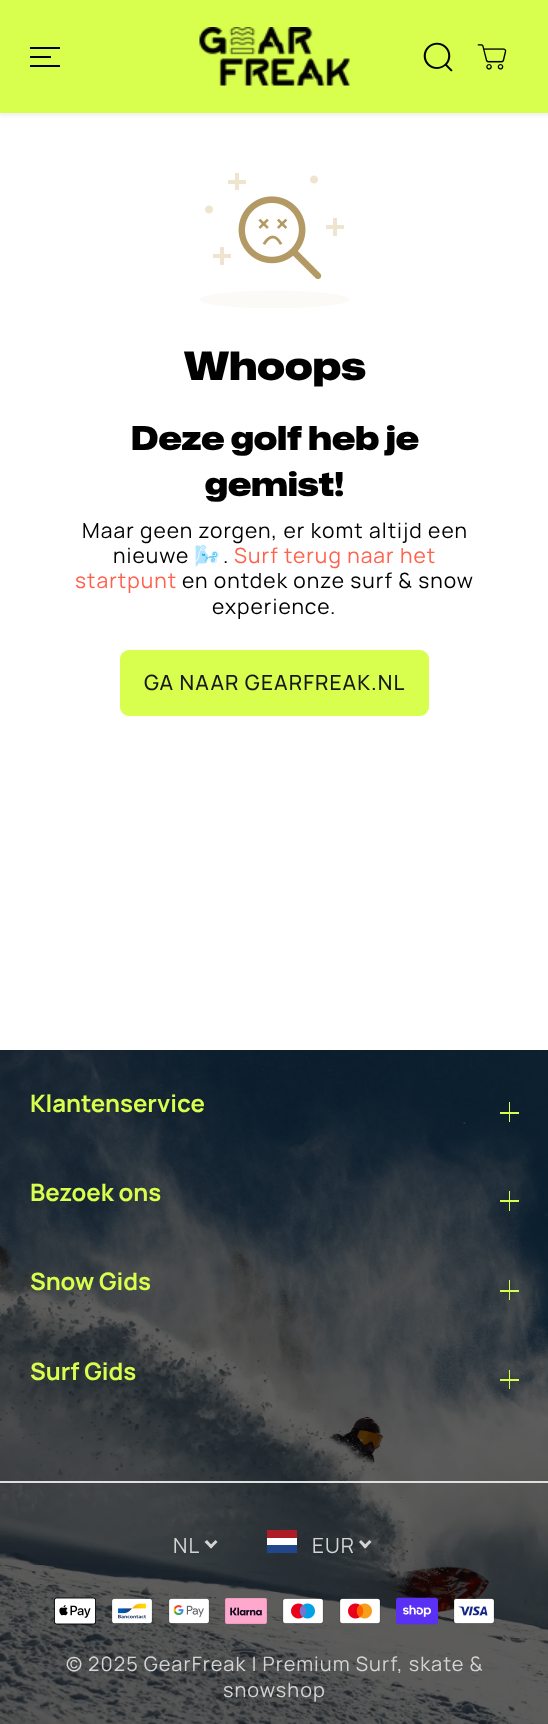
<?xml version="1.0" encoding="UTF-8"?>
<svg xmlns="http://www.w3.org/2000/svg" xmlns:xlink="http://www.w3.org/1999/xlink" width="548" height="1724">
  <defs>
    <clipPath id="clip1"><path d="M 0 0 h 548 v 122 h -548 z m 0 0 h 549 v 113 h -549 z" clip-rule="evenodd" /></clipPath>
  </defs>
  <rect width="100%" height="100%" fill="#ffffff" />
  <rect width="548" height="113" fill="#d8ff4d" />
  <g clip-path="url(#clip1)">
    <rect y="3" width="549" height="113" fill="#000000" fill-opacity="0.05" filter="blur(1.5px)" />
  </g>
  <rect x="30" y="56" width="21" height="2" fill="#000000" />
  <rect x="30" y="47" width="30" height="2" fill="#000000" />
  <rect x="30" y="65" width="30" height="2" fill="#000000" />
  <image x="199" y="27" width="151" height="59" xlink:href="image1.png" />
  <image x="423" y="42" width="30" height="30" xlink:href="image2.png" />
  <image x="477" y="44" width="30" height="26" xlink:href="image3.png" />
  <image x="200" y="173" width="149" height="135" xlink:href="image4.png" />
  <rect x="120" y="650" width="309" height="66" rx="9" fill="#d8ff4d" />
  <image x="0" y="1050" width="548" height="674" xlink:href="image5.png" />
  <rect x="509" y="1102" width="1" height="20" fill="#d8ff4d" />
  <rect x="500" y="1112" width="19" height="2" fill="#d8ff4d" />
  <rect x="509" y="1191" width="1" height="20" fill="#d8ff4d" />
  <rect x="500" y="1200" width="19" height="2" fill="#d8ff4d" />
  <rect x="509" y="1280" width="1" height="20" fill="#d8ff4d" />
  <rect x="500" y="1290" width="19" height="2" fill="#d8ff4d" />
  <rect x="509" y="1370" width="1" height="19" fill="#d8ff4d" />
  <rect x="500" y="1379" width="19" height="2" fill="#d8ff4d" />
  <rect y="1481" width="548" height="2" fill="#dfdfdf" />
  <path d="M 215.5 1540 l 2 2 l -6.5 6.5 l -2 -2 z" fill="#d4d4d4" />
  <path d="M 207 1540 l 6 6.5 l -2 2 l -6.5 -6.5 z" fill="#d4d4d4" />
  <rect x="267" y="1538" width="30" height="7" fill="#ffffff" />
  <rect x="267" y="1545" width="30" height="8" fill="#21468b" />
  <rect x="267" y="1530" width="30" height="8" fill="#ae1c28" />
  <path d="M 369.5 1540 l 2 2 l -6.5 6.5 l -2 -2 z" fill="#d4d4d4" />
  <path d="M 361 1540 l 6.5 6.5 l -2.5 2 l -6 -6.5 z" fill="#d4d4d4" />
  <image x="54" y="1597" width="42" height="28" xlink:href="image6.png" />
  <image x="111" y="1598" width="42" height="26" xlink:href="image7.png" />
  <image x="168" y="1598" width="42" height="26" xlink:href="image8.png" />
  <image x="225" y="1598" width="42" height="26" xlink:href="image9.png" />
  <image x="282" y="1598" width="42" height="26" xlink:href="image10.png" />
  <image x="339" y="1598" width="42" height="26" xlink:href="image11.png" />
  <image x="396" y="1597" width="42" height="28" xlink:href="image12.png" />
  <image x="453" y="1598" width="42" height="26" xlink:href="image13.png" />
  <text x="184" y="380" style="font-family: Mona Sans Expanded; font-size: 39px; font-weight: 900; fill: #000000">Whoops</text>
  <text x="131" y="450" style="font-family: Mona Sans Expanded; font-size: 33px; font-weight: 900; fill: #000000">Deze golf heb je</text>
  <text x="205" y="496" style="font-family: Mona Sans Expanded; font-size: 33px; font-weight: 900; fill: #000000">gemist!</text>
  <text x="82" y="538" style="font-family: Manrope; font-size: 21px; letter-spacing: 1.05px; fill: #000000">Maar geen zorgen, er komt altijd een</text>
  <text x="113" y="563" style="font-family: Manrope; font-size: 21px; letter-spacing: 1.05px; fill: #000000">nieuwe</text>
  <text x="194" y="563" style="font-family: Noto Color Emoji; font-size: 21px; letter-spacing: 1.05px; fill: #000000">🌬️</text>
  <text x="223" y="563" style="font-family: Manrope; font-size: 21px; letter-spacing: 1.05px; fill: #000000">.</text>
  <text x="234" y="563" style="font-family: Manrope; font-size: 21px; letter-spacing: 1.05px; fill: #ff614d">Surf terug naar het</text>
  <text x="75" y="588" style="font-family: Manrope; font-size: 21px; letter-spacing: 1.05px; fill: #ff614d">startpunt</text>
  <text x="182" y="588" style="font-family: Manrope; font-size: 21px; letter-spacing: 1.05px; fill: #000000">en ontdek onze surf &amp; snow</text>
  <text x="212" y="614" style="font-family: Manrope; font-size: 21px; letter-spacing: 1.05px; fill: #000000">experience.</text>
  <text x="144" y="690" style="font-family: Manrope; font-size: 21px; font-weight: 500; letter-spacing: 1.05px; fill: #181818">GA NAAR GEARFREAK.NL</text>
  <text x="30" y="1112" style="font-family: Manrope; font-size: 24px; font-weight: bold; fill: #d8ff4d">Klantenservice</text>
  <text x="30" y="1201" style="font-family: Manrope; font-size: 24px; font-weight: bold; fill: #d8ff4d">Bezoek ons</text>
  <text x="30" y="1290" style="font-family: Manrope; font-size: 24px; font-weight: bold; fill: #d8ff4d">Snow Gids</text>
  <text x="30" y="1380" style="font-family: Manrope; font-size: 24px; font-weight: bold; fill: #d8ff4d">Surf Gids</text>
  <text x="173" y="1553" style="font-family: Manrope; font-size: 21px; letter-spacing: 1.05px; fill: #d4d4d4">NL</text>
  <text x="312" y="1553" style="font-family: Manrope; font-size: 21px; letter-spacing: 1.05px; fill: #d4d4d4">EUR</text>
  <text x="66" y="1671" style="font-family: Manrope; font-size: 19.95px; letter-spacing: 1.05px; fill: #d4d4d4">© 2025 GearFreak | Premium Surf, skate &amp;</text>
  <text x="223" y="1697" style="font-family: Manrope; font-size: 19.95px; letter-spacing: 1.05px; fill: #d4d4d4">snowshop</text>
</svg>
